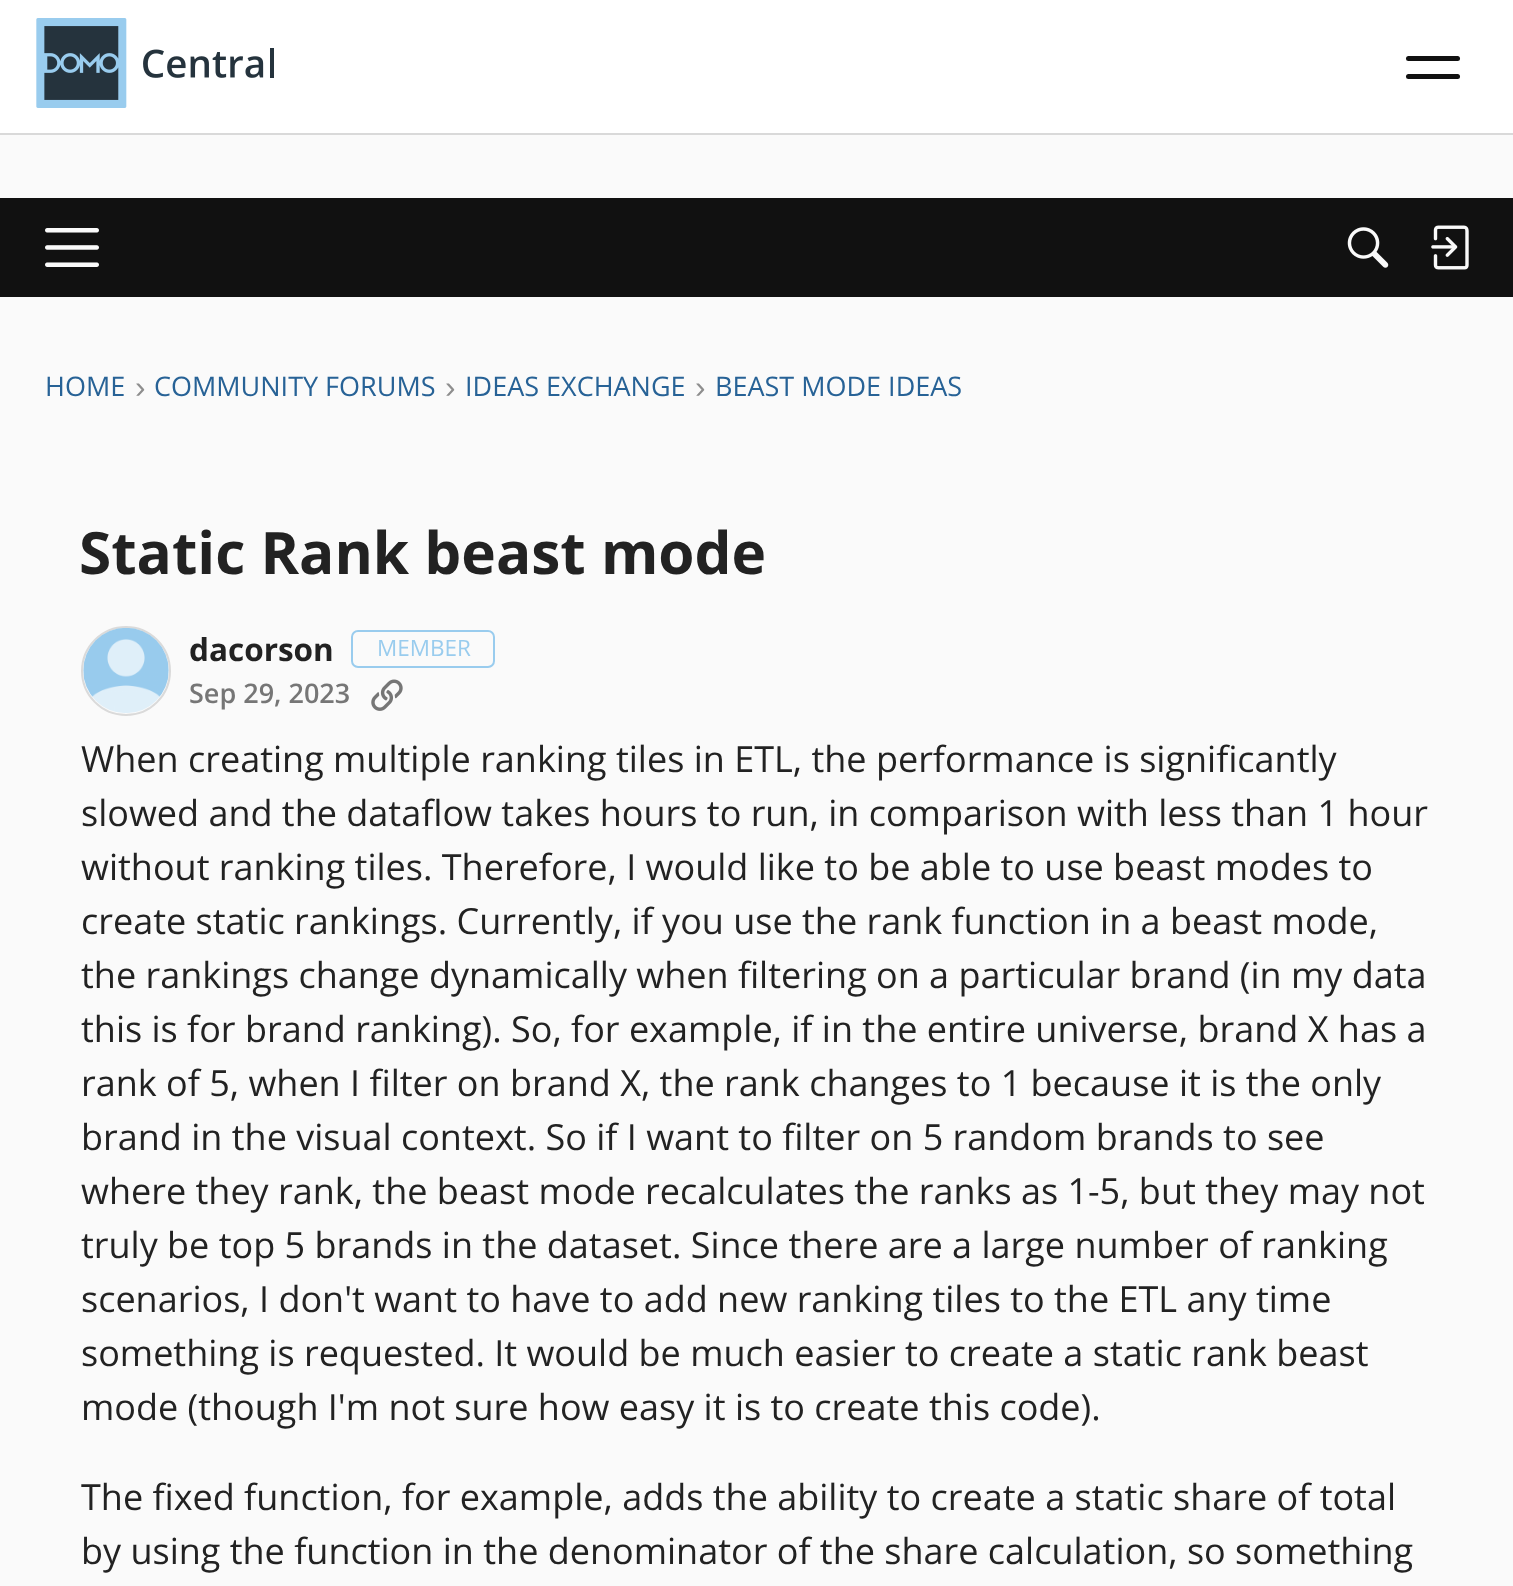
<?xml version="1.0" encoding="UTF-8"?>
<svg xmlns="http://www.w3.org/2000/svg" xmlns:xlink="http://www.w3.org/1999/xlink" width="1513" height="1586">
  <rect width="100%" height="100%" fill="#fafafa" />
  <rect width="1513" height="133" fill="#ffffff" />
  <rect y="133" width="1513" height="2" fill="#d9d9d9" />
  <image x="36" y="18" width="238" height="90" xlink:href="image1.png" />
  <rect x="1406" y="56" width="54" height="5" rx="2.5" fill="#111111" />
  <rect x="1406" y="74" width="54" height="5" rx="2.5" fill="#111111" />
  <rect y="198" width="1513" height="99" fill="#111111" />
  <image x="45" y="228" width="54" height="39" xlink:href="image2.png" />
  <image x="1347" y="227" width="42" height="41" xlink:href="image3.png" />
  <image x="1431" y="225" width="38" height="45" xlink:href="image4.png" />
  <circle cx="126" cy="671" r="44" fill="none" stroke="#dadada" stroke-width="2" />
  <image x="83" y="628" width="86" height="85" xlink:href="image5.png" />
  <rect x="352" y="631" width="142" height="36" rx="6" fill="none" stroke="#99ccee" stroke-width="2" />
  <image x="371" y="679" width="32" height="32" xlink:href="image6.png" />
  <text x="45" y="396" style="font-family: Open Sans; font-size: 27px; fill: #276296">HOME</text>
  <text x="135" y="398" style="font-family: Liberation Sans; font-size: 31.5px; fill: #8e8e8e">›</text>
  <text x="154" y="396" style="font-family: Open Sans; font-size: 27px; fill: #276296">COMMUNITY FORUMS</text>
  <text x="445" y="398" style="font-family: Liberation Sans; font-size: 31.5px; fill: #8e8e8e">›</text>
  <text x="465" y="396" style="font-family: Open Sans; font-size: 27px; fill: #276296">IDEAS EXCHANGE</text>
  <text x="695" y="398" style="font-family: Liberation Sans; font-size: 31.5px; fill: #8e8e8e">›</text>
  <text x="715" y="396" style="font-family: Open Sans; font-size: 27px; fill: #276296">BEAST MODE IDEAS</text>
  <text x="79" y="574" style="font-family: Open Sans; font-size: 58.5px; font-weight: bold; fill: #222222">Static Rank beast mode</text>
  <text x="189" y="661" style="font-family: Open Sans; font-size: 31.5px; font-weight: bold; fill: #222222">dacorson</text>
  <text x="377" y="656" style="font-family: Open Sans; font-size: 22.5px; fill: #99ccee">MEMBER</text>
  <text x="189" y="703" style="font-family: Open Sans; font-size: 27px; font-weight: 600; fill: #767676">Sep 29, 2023</text>
  <text x="81" y="772" style="font-family: Open Sans; font-size: 36px; fill: #222222">When creating multiple ranking tiles in ETL, the performance is significantly</text>
  <text x="81" y="826" style="font-family: Open Sans; font-size: 36px; fill: #222222">slowed and the dataflow takes hours to run, in comparison with less than 1 hour</text>
  <text x="81" y="880" style="font-family: Open Sans; font-size: 36px; fill: #222222">without ranking tiles. Therefore, I would like to be able to use beast modes to</text>
  <text x="81" y="934" style="font-family: Open Sans; font-size: 36px; fill: #222222">create static rankings. Currently, if you use the rank function in a beast mode,</text>
  <text x="81" y="988" style="font-family: Open Sans; font-size: 36px; fill: #222222">the rankings change dynamically when filtering on a particular brand (in my data</text>
  <text x="81" y="1042" style="font-family: Open Sans; font-size: 36px; fill: #222222">this is for brand ranking). So, for example, if in the entire universe, brand X has a</text>
  <text x="81" y="1096" style="font-family: Open Sans; font-size: 36px; fill: #222222">rank of 5, when I filter on brand X, the rank changes to 1 because it is the only</text>
  <text x="81" y="1150" style="font-family: Open Sans; font-size: 36px; fill: #222222">brand in the visual context. So if I want to filter on 5 random brands to see</text>
  <text x="81" y="1204" style="font-family: Open Sans; font-size: 36px; fill: #222222">where they rank, the beast mode recalculates the ranks as 1-5, but they may not</text>
  <text x="81" y="1258" style="font-family: Open Sans; font-size: 36px; fill: #222222">truly be top 5 brands in the dataset. Since there are a large number of ranking</text>
  <text x="81" y="1312" style="font-family: Open Sans; font-size: 36px; fill: #222222">scenarios, I don't want to have to add new ranking tiles to the ETL any time</text>
  <text x="81" y="1366" style="font-family: Open Sans; font-size: 36px; fill: #222222">something is requested. It would be much easier to create a static rank beast</text>
  <text x="81" y="1420" style="font-family: Open Sans; font-size: 36px; fill: #222222">mode (though I'm not sure how easy it is to create this code).</text>
  <text x="81" y="1510" style="font-family: Open Sans; font-size: 36px; fill: #222222">The fixed function, for example, adds the ability to create a static share of total</text>
  <text x="81" y="1564" style="font-family: Open Sans; font-size: 36px; fill: #222222">by using the function in the denominator of the share calculation, so something</text>
</svg>
